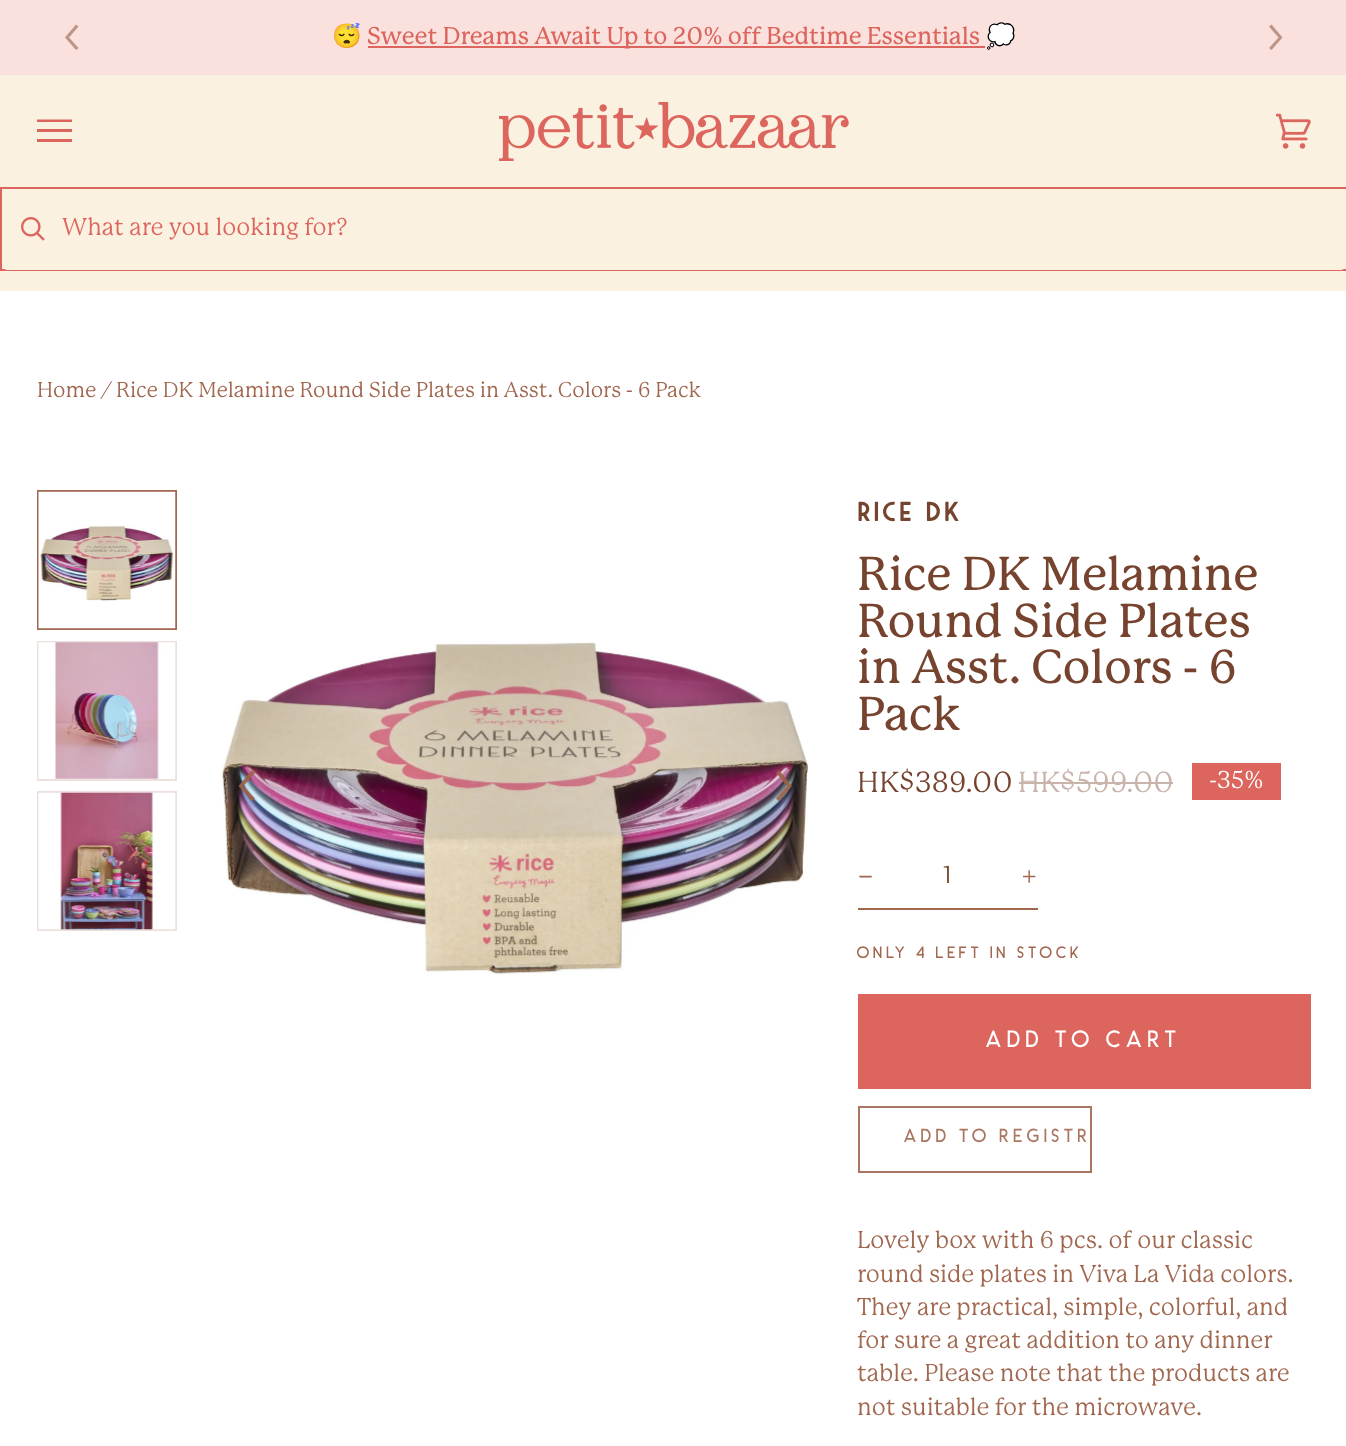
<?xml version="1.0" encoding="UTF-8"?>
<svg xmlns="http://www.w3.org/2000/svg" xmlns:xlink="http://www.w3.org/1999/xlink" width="1346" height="1446">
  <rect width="100%" height="100%" fill="#ffffff" />
  <rect width="1346" height="75" fill="#fae1dd" />
  <path d="M 65 37.5 l 11 12.5 l 2.5 -2 l -9.5 -10.5 l 9.5 -11 l -2.5 -2 z" fill="#bc9586" />
  <rect x="368" y="46" width="617" height="2" fill="#dc665e" />
  <path d="M 1282.5 37.5 l -11 -13 l -2.5 2 l 9.5 11 l -9.5 10.5 l 2.5 2 z" fill="#bc9586" />
  <rect y="75" width="1346" height="216" fill="#fbf1e0" />
  <path d="M 37 119.5 h 35 v 2.5 h -35 z m 0 9.5 h 35 v 3 h -35 z m 0 10 h 35 v 3 h -35 z" fill="#dc665e" />
  <image x="499" y="102" width="350" height="59" xlink:href="image1.png" />
  <image x="1276" y="113" width="35" height="36" xlink:href="image2.png" />
  <rect x="1" y="188" width="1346" height="82" fill="none" stroke="#dc665e" stroke-width="2" />
  <rect x="3" y="190" width="1342" height="79" rx="4" fill="#fbf1e0" stroke="#fbf1e0" stroke-width="2" />
  <image x="21" y="217" width="24" height="24" xlink:href="image3.png" />
  <rect x="38" y="491" width="138" height="138" fill="none" stroke="#a1674f" stroke-width="2" />
  <image x="38" y="491" width="138" height="138" xlink:href="image4.png" />
  <rect x="38" y="642" width="138" height="138" fill="none" stroke="#ece1dc" stroke-width="2" />
  <image x="38" y="642" width="138" height="137" xlink:href="image5.png" />
  <rect x="38" y="792" width="138" height="138" fill="none" stroke="#ece1dc" stroke-width="2" />
  <image x="38" y="792" width="138" height="138" xlink:href="image6.png" />
  <image x="222" y="642" width="586" height="333" xlink:href="image7.png" />
  <path d="M 238.5 786 l 13.5 15.5 l 3 -3 l -11.5 -12.5 l 11.5 -13 l -3 -3 z" fill="#9d6147" fill-opacity="0.9" />
  <path d="M 792 786 l -13 -16 l -3 3 l 11 13 l -11 12.5 l 3 3 z" fill="#9d6147" fill-opacity="0.9" />
  <rect x="1019" y="782" width="154" height="2" fill="#c8b4ab" />
  <rect x="1192" y="763" width="89" height="37" fill="#dc665e" />
  <rect x="858" y="908" width="180" height="2" fill="#a1674f" />
  <rect x="858" y="994" width="453" height="95" fill="#dc665e" />
  <rect x="859" y="1107" width="232" height="65" fill="none" stroke="#aa7661" stroke-width="2" />
  <text x="332" y="44" style="font-family: Noto Color Emoji; font-size: 23.75px; fill: #dc665e">😴</text>
  <text x="367" y="44" style="font-family: 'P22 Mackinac'; font-size: 23.75px; font-weight: 500; fill: #dc665e">Sweet Dreams Await Up to 20% off Bedtime Essentials</text>
  <text x="986" y="44" style="font-family: Noto Color Emoji; font-size: 23.75px; fill: #dc665e">💭</text>
  <text x="62" y="235" style="font-family: 'P22 Mackinac'; font-size: 23.75px; fill: #dc665e">What are you looking for?</text>
  <text x="37" y="397" style="font-family: 'P22 Mackinac'; font-size: 21px; fill: #a1674f">Home / Rice DK Melamine Round Side Plates in Asst. Colors - 6 Pack</text>
  <text x="857" y="521" style="font-family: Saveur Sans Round; font-size: 27.5px; font-weight: 600; letter-spacing: 2.75px; fill: #76432e">Rice DK</text>
  <text x="857" y="590" style="font-family: 'P22 Mackinac'; font-size: 46.5px; font-weight: 500; fill: #76432e">Rice DK Melamine</text>
  <text x="857" y="637" style="font-family: 'P22 Mackinac'; font-size: 46.5px; font-weight: 500; fill: #76432e">Round Side Plates</text>
  <text x="857" y="683" style="font-family: 'P22 Mackinac'; font-size: 46.5px; font-weight: 500; fill: #76432e">in Asst. Colors - 6</text>
  <text x="857" y="730" style="font-family: 'P22 Mackinac'; font-size: 46.5px; font-weight: 500; fill: #76432e">Pack</text>
  <text x="857" y="792" style="font-family: 'P22 Mackinac'; font-size: 28.5px; fill: #76432e">HK$389.00</text>
  <text x="1018" y="792" style="font-family: 'P22 Mackinac'; font-size: 28.5px; fill: #c8b4ab">HK$599.00</text>
  <text x="1209" y="788" style="font-family: 'P22 Mackinac'; font-size: 23.75px; fill: #ffffff">-35%</text>
  <text x="857" y="885" style="font-family: 'P22 Mackinac'; font-size: 23.75px; font-weight: 500; fill: #a1674f">−</text>
  <text x="943" y="883" style="font-family: 'P22 Mackinac'; font-size: 23.75px; fill: #76432e">1</text>
  <text x="1021" y="885" style="font-family: 'P22 Mackinac'; font-size: 23.75px; font-weight: 500; fill: #a1674f">+</text>
  <text x="857" y="958" style="font-family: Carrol; font-size: 16.6px; font-weight: 600; letter-spacing: 3.3px; fill: #a1674f">ONLY 4 LEFT IN STOCK</text>
  <text x="986" y="1047" style="font-family: Carrol; font-size: 23.75px; font-weight: 600; letter-spacing: 4.75px; fill: #ffffff">ADD TO CART</text>
  <text x="904" y="1142" style="font-family: Carrol; font-size: 19px; font-weight: 600; letter-spacing: 3.75px; fill: #aa7661">ADD TO REGISTR</text>
  <text x="857" y="1248" style="font-family: 'P22 Mackinac'; font-size: 23.75px; fill: #a1674f">Lovely box with 6 pcs. of our classic</text>
  <text x="857" y="1282" style="font-family: 'P22 Mackinac'; font-size: 23.75px; fill: #a1674f">round side plates in Viva La Vida colors.</text>
  <text x="857" y="1315" style="font-family: 'P22 Mackinac'; font-size: 23.75px; fill: #a1674f">They are practical, simple, colorful, and</text>
  <text x="857" y="1348" style="font-family: 'P22 Mackinac'; font-size: 23.75px; fill: #a1674f">for sure a great addition to any dinner</text>
  <text x="857" y="1381" style="font-family: 'P22 Mackinac'; font-size: 23.75px; fill: #a1674f">table. Please note that the products are</text>
  <text x="857" y="1415" style="font-family: 'P22 Mackinac'; font-size: 23.75px; fill: #a1674f">not suitable for the microwave.</text>
</svg>
